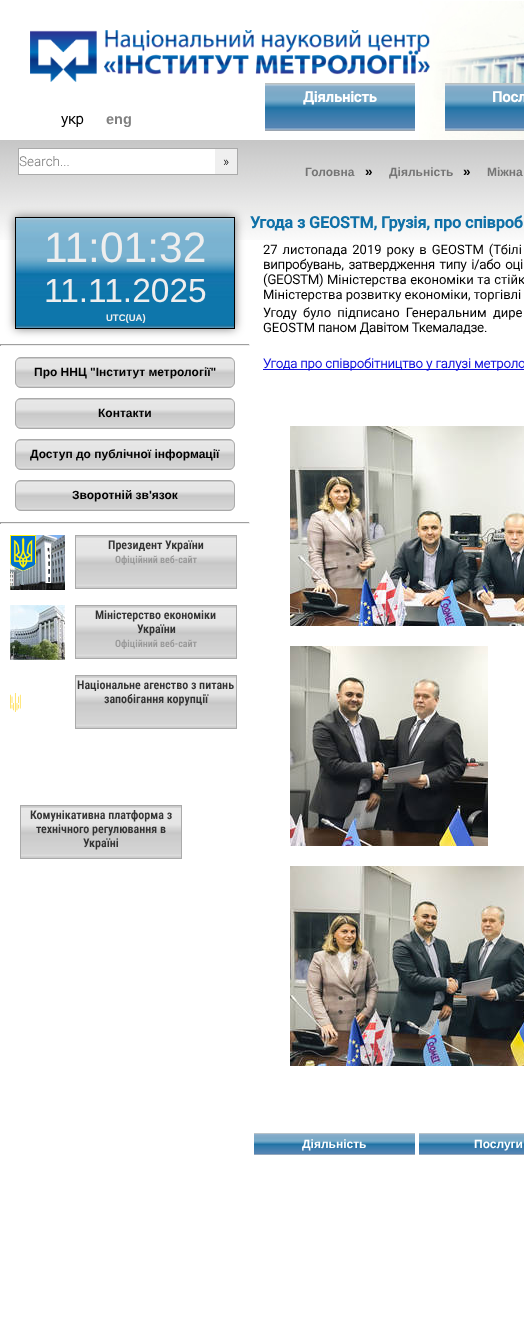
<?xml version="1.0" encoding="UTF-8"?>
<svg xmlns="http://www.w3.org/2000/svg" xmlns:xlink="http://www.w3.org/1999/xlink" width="524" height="1338">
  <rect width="100%" height="100%" fill="#ffffff" />
  <image x="419" y="1" width="105" height="139" xlink:href="image2.png" />
  <image x="30" y="30" width="400" height="52" xlink:href="image1.png" />
  <image x="265" y="83" width="150" height="48" xlink:href="image3.png" />
  <image x="445" y="83" width="79" height="48" xlink:href="image4.png" />
  <image x="0" y="140" width="524" height="100" xlink:href="image5.png" />
  <rect x="19" y="149" width="196" height="25" fill="#ffffff" />
  <rect x="18.5" y="148.5" width="219" height="26" fill="none" stroke="#aaaaaa" />
  <rect x="215" y="149" width="22" height="25" fill="#efefef" />
  <rect x="15" y="217" width="220" height="112" fill="#000000" fill-opacity="0.5" filter="blur(5px)" />
  <image x="16" y="218" width="218" height="110" xlink:href="image6.png" />
  <rect x="15.5" y="217.5" width="219" height="111" fill="none" stroke="#000000" />
  <rect y="344" width="250" height="1" fill="#9f9f9f" />
  <rect x="249" y="344" width="1" height="2" fill="#eeeeee" />
  <rect y="345" width="250" height="1" fill="#eeeeee" />
  <rect y="344" width="1" height="2" fill="#9f9f9f" />
  <image x="15" y="357" width="220" height="31" xlink:href="image7.png" />
  <rect x="15.5" y="357.5" width="219" height="30" rx="5.5" fill="none" stroke="#aaaaaa" />
  <image x="15" y="398" width="220" height="31" xlink:href="image7.png" />
  <rect x="15.5" y="398.5" width="219" height="30" rx="5.5" fill="none" stroke="#aaaaaa" />
  <image x="15" y="439" width="220" height="31" xlink:href="image7.png" />
  <rect x="15.5" y="439.5" width="219" height="30" rx="5.5" fill="none" stroke="#aaaaaa" />
  <image x="15" y="480" width="220" height="31" xlink:href="image8.png" />
  <rect x="15.5" y="480.5" width="219" height="30" rx="5.5" fill="none" stroke="#aaaaaa" />
  <rect y="522" width="250" height="1" fill="#9f9f9f" />
  <rect x="249" y="522" width="1" height="2" fill="#eeeeee" />
  <rect y="523" width="250" height="1" fill="#eeeeee" />
  <rect y="522" width="1" height="2" fill="#9f9f9f" />
  <image x="10" y="535" width="55" height="55" xlink:href="image9.png" />
  <image x="76" y="536" width="160" height="52" xlink:href="image10.png" />
  <rect x="75.5" y="535.5" width="161" height="53" fill="none" stroke="#aaaaaa" />
  <image x="10" y="605" width="55" height="55" xlink:href="image11.png" />
  <image x="76" y="606" width="160" height="52" xlink:href="image10.png" />
  <rect x="75.5" y="605.5" width="161" height="53" fill="none" stroke="#aaaaaa" />
  <image x="10" y="693" width="11" height="19" xlink:href="image12.png" />
  <image x="76" y="676" width="160" height="52" xlink:href="image10.png" />
  <rect x="75.5" y="675.5" width="161" height="53" fill="none" stroke="#aaaaaa" />
  <image x="21" y="806" width="160" height="52" xlink:href="image10.png" />
  <rect x="20.5" y="805.5" width="161" height="53" fill="none" stroke="#aaaaaa" />
  <rect x="263" y="369" width="261" height="1" fill="#1111dd" />
  <image x="290" y="426" width="234" height="200" xlink:href="image13.png" />
  <image x="290" y="646" width="198" height="200" xlink:href="image14.png" />
  <image x="290" y="866" width="234" height="200" xlink:href="image15.png" />
  <image x="254" y="1133" width="161" height="22" xlink:href="image16.png" />
  <image x="419" y="1133" width="105" height="22" xlink:href="image17.png" />
  <text x="303" y="102" style="font-family: Roboto; font-size: 14.5px; font-weight: bold; fill: #ffffff">Діяльність</text>
  <text x="492" y="102" style="font-family: Roboto; font-size: 14.5px; font-weight: bold; fill: #ffffff">Посл</text>
  <text x="61" y="124" style="font-family: 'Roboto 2'; font-size: 14.5px; font-weight: bold; fill: #000000">укр</text>
  <text x="106" y="124" style="font-family: Liberation Sans; font-size: 14.5px; font-weight: bold; fill: #808080">eng</text>
  <text x="19" y="166" style="font-family: Roboto; font-size: 13.5px; font-weight: 300; fill: #757575">Search...</text>
  <text x="223" y="166" style="font-family: Roboto; font-size: 13.5px; font-weight: 300; fill: #000000">»</text>
  <text x="305" y="176" style="font-family: Liberation Sans; font-size: 12px; font-weight: bold; fill: #757575">Головна</text>
  <text x="365" y="176" style="font-family: Liberation Sans; font-size: 13.5px; font-weight: bold; fill: #000000">»</text>
  <text x="389" y="176" style="font-family: Liberation Sans; font-size: 12px; font-weight: bold; fill: #757575">Діяльність</text>
  <text x="463" y="176" style="font-family: Liberation Sans; font-size: 13.5px; font-weight: bold; fill: #000000">»</text>
  <text x="487" y="176" style="font-family: Liberation Sans; font-size: 12px; font-weight: bold; fill: #757575">Міжна</text>
  <text x="44" y="262" style="font-family: Liberation Sans; font-size: 42.5px; fill: #eeeeee">11:01:32</text>
  <text x="44" y="302" style="font-family: Liberation Sans; font-size: 33.5px; fill: #eeeeee">11.11.2025</text>
  <text x="106" y="321" style="font-family: Liberation Sans; font-size: 9.5px; font-weight: bold; fill: #eeeeee">UTC(UA)</text>
  <text x="34" y="376" style="font-family: Liberation Sans; font-size: 12px; font-weight: bold; fill: #000000">Про ННЦ "Інститут метрології"</text>
  <text x="98" y="417" style="font-family: Liberation Sans; font-size: 12px; font-weight: bold; fill: #000000">Контакти</text>
  <text x="30" y="458" style="font-family: Liberation Sans; font-size: 12px; font-weight: bold; fill: #000000">Доступ до публічної інформації</text>
  <text x="72" y="499" style="font-family: Liberation Sans; font-size: 12px; font-weight: bold; fill: #000000">Зворотній зв'язок</text>
  <text x="108" y="549" style="font-family: Roboto Condensed; font-size: 12px; font-weight: 600; fill: #333333">Президент України</text>
  <text x="115" y="563" style="font-family: Roboto Condensed; font-size: 10px; font-weight: 600; fill: #999999">Офіційний веб-сайт</text>
  <text x="95" y="619" style="font-family: Roboto Condensed; font-size: 12px; font-weight: 600; fill: #333333">Міністерство економіки</text>
  <text x="137" y="633" style="font-family: Roboto Condensed; font-size: 12px; font-weight: 600; fill: #333333">України</text>
  <text x="115" y="647" style="font-family: Roboto Condensed; font-size: 10px; font-weight: 600; fill: #999999">Офіційний веб-сайт</text>
  <text x="77" y="689" style="font-family: Roboto Condensed; font-size: 12px; font-weight: 600; fill: #333333">Національне агенство з питань</text>
  <text x="104" y="703" style="font-family: Roboto Condensed; font-size: 12px; font-weight: 600; fill: #333333">запобігання корупції</text>
  <text x="30" y="819" style="font-family: Roboto Condensed; font-size: 12px; font-weight: 600; fill: #333333">Комунікативна платформа з</text>
  <text x="36" y="833" style="font-family: Roboto Condensed; font-size: 12px; font-weight: 600; fill: #333333">технічного регулювання в</text>
  <text x="83" y="847" style="font-family: Roboto Condensed; font-size: 12px; font-weight: 600; fill: #333333">Україні</text>
  <text x="250" y="228" style="font-family: Roboto; font-size: 16px; font-weight: bold; fill: #1071a8">Угода з GEOSTM, Грузія, про співроб</text>
  <text x="263" y="254" word-spacing="1.75" style="font-family: Roboto; font-size: 13px; fill: #000000">27 листопада 2019 року в GEOSTM (Тбілі</text>
  <text x="263" y="269" word-spacing="1.5" style="font-family: 'Roboto 2'; font-size: 13px; font-weight: bold; fill: #000000">випробувань, затвердження типу і/або оці</text>
  <text x="263" y="284" style="font-family: 'Roboto 2'; font-size: 13px; font-weight: bold; fill: #000000">(GEOSTM)</text>
  <text x="327" y="284" word-spacing="0.5" style="font-family: Roboto; font-size: 13px; fill: #000000">Міністерства економіки та стійк</text>
  <text x="263" y="299" style="font-family: Roboto; font-size: 13px; fill: #000000">Міністерства розвитку економіки, торгівлі</text>
  <text x="263" y="317" word-spacing="3" style="font-family: Roboto; font-size: 13px; fill: #000000">Угоду було підписано Генеральним дире</text>
  <text x="263" y="332" style="font-family: Roboto; font-size: 13px; fill: #000000">GEOSTM</text>
  <text x="318" y="332" style="font-family: 'Roboto 2'; font-size: 13px; font-weight: bold; fill: #000000">паном Давітом Ткемаладзе</text>
  <text x="484" y="332" style="font-family: Roboto; font-size: 13px; fill: #000000">.</text>
  <text x="263" y="368" style="font-family: 'Roboto 2'; font-size: 13px; font-weight: bold; fill: #1111dd">Угода про співробітництво у галузі метроло</text>
  <text x="302" y="1148" style="font-family: Liberation Sans; font-size: 12px; font-weight: bold; fill: #ffffff">Діяльність</text>
  <text x="474" y="1148" style="font-family: Liberation Sans; font-size: 12px; font-weight: bold; fill: #ffffff">Послуги</text>
</svg>
